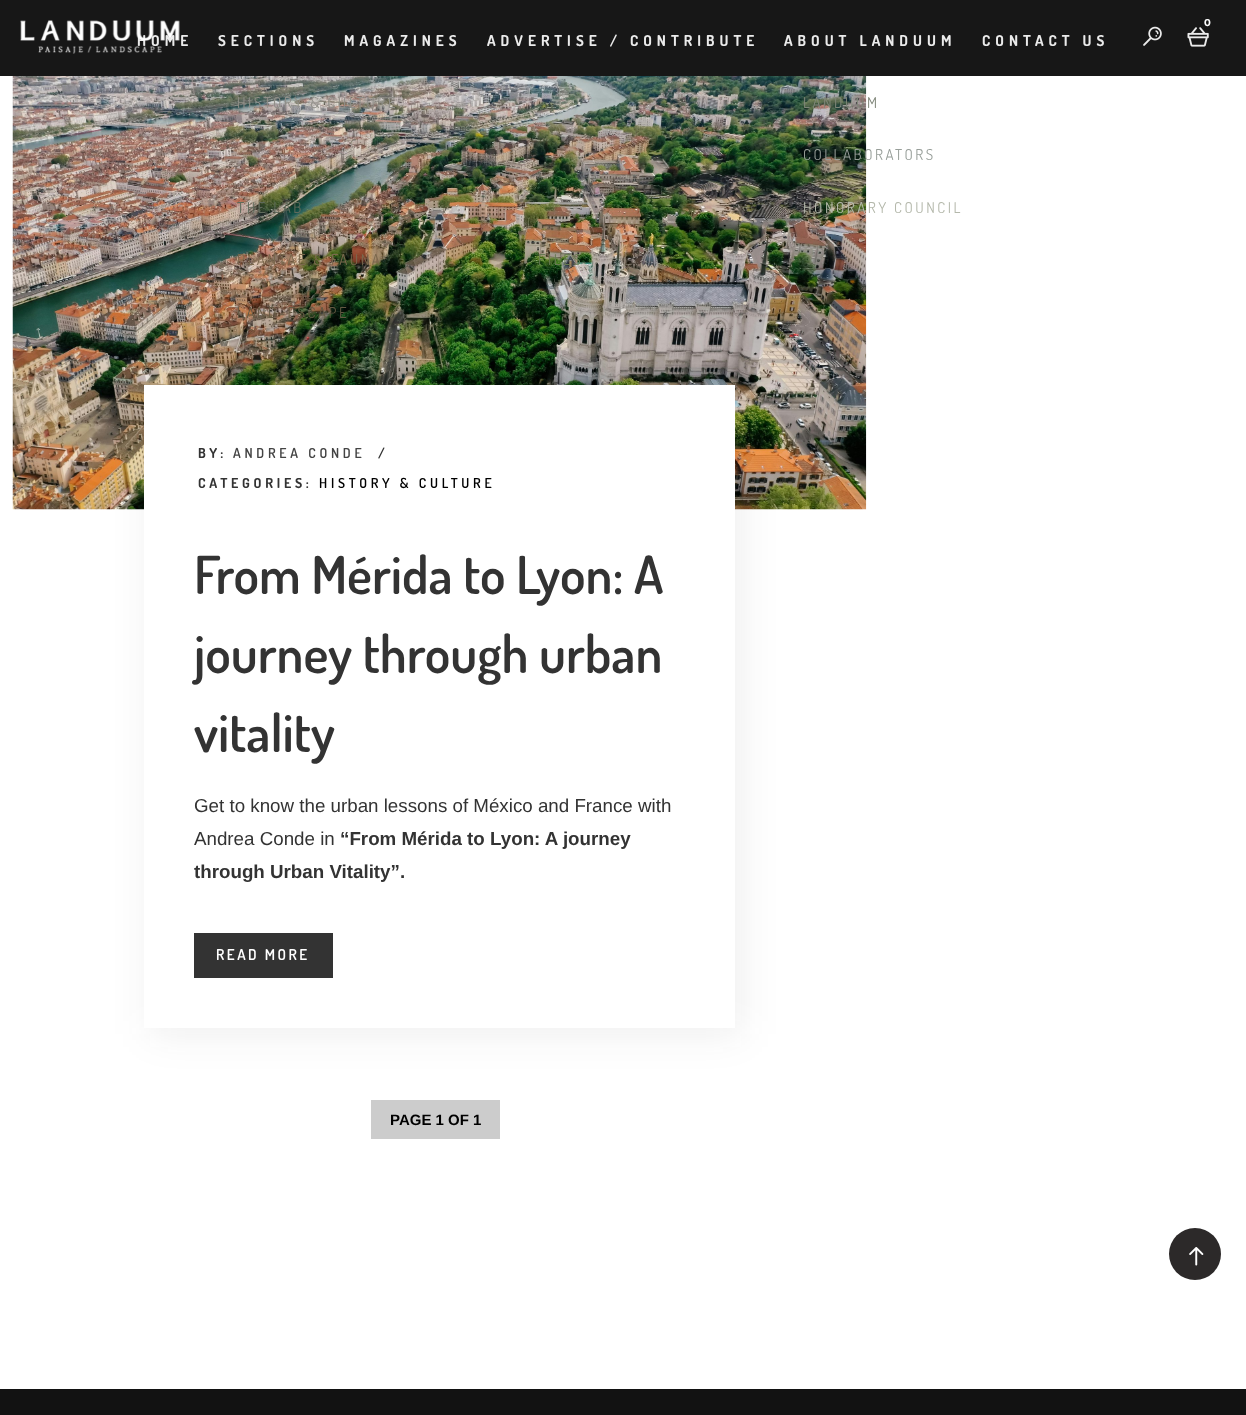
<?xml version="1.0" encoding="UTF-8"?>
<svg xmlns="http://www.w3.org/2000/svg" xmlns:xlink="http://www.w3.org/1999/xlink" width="1246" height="1415">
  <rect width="100%" height="100%" fill="#ffffff" />
  <rect width="1246" height="76" fill="#171717" />
  <image x="1187" y="27" width="22" height="20" xlink:href="image2.png" />
  <image x="1143" y="26" width="19" height="20" xlink:href="image3.png" />
  <image x="12" y="76" width="855" height="434" xlink:href="image4.png" />
  <rect x="150" y="391" width="591" height="643" fill="#2b2929" fill-opacity="0.08" filter="blur(19px)" />
  <rect x="144" y="385" width="591" height="643" fill="#ffffff" />
  <rect x="194" y="933" width="139" height="45" fill="#333333" />
  <rect x="371" y="1100" width="129" height="39" fill="#cccccc" />
  <rect y="1389" width="1246" height="26" fill="#121212" />
  <circle cx="1195" cy="1254" r="26" fill="#2c2929" />
  <image x="1189" y="1247" width="15" height="19" xlink:href="image5.png" />
  <text x="218" y="46" style="font-family: Dosis; font-size: 15px; font-weight: bold; letter-spacing: 5px; fill: #ebebeb">SECTIONS</text>
  <text x="237" y="108" style="font-family: Dosis; font-size: 15px; letter-spacing: 2.5px; fill: #908f89">HISTORY &amp; CULTURE</text>
  <text x="237" y="213" style="font-family: Dosis; font-size: 15px; letter-spacing: 2.5px; fill: #5f6a5b">THE LAB</text>
  <text x="237" y="265" style="font-family: Dosis; font-size: 15px; letter-spacing: 2.5px; fill: #7b684d">PLANTAE &amp; FAUNA</text>
  <text x="538" y="265" style="font-family: Dosis; font-size: 15px; letter-spacing: 2.5px; fill: #687a53">FILES</text>
  <text x="237" y="318" style="font-family: Dosis; font-size: 15px; letter-spacing: 2.5px; fill: #645943">LAND-ESCAPE</text>
  <text x="137" y="46" style="font-family: Dosis; font-size: 15px; font-weight: bold; letter-spacing: 5px; fill: #ebebeb">HOME</text>
  <image x="20" y="20" width="160" height="34" xlink:href="image1.png" />
  <text x="344" y="46" style="font-family: Dosis; font-size: 15px; font-weight: bold; letter-spacing: 5px; fill: #ebebeb">MAGAZINES</text>
  <text x="487" y="46" style="font-family: Dosis; font-size: 15px; font-weight: bold; letter-spacing: 5px; fill: #ebebeb">ADVERTISE / CONTRIBUTE</text>
  <text x="784" y="46" style="font-family: Dosis; font-size: 15px; font-weight: bold; letter-spacing: 5px; fill: #ebebeb">ABOUT LANDUUM</text>
  <text x="803" y="108" style="font-family: Dosis; font-size: 15px; letter-spacing: 2.5px; fill: #7f8679">LANDUUM</text>
  <text x="803" y="160" style="font-family: Dosis; font-size: 15px; letter-spacing: 2.5px; fill: #979e99">COLLABORATORS</text>
  <text x="803" y="213" style="font-family: Dosis; font-size: 15px; letter-spacing: 2.5px; fill: #b4b8ab">HONORARY COUNCIL</text>
  <text x="982" y="46" style="font-family: Dosis; font-size: 15px; font-weight: bold; letter-spacing: 5px; fill: #ebebeb">CONTACT US</text>
  <text x="1204" y="26" style="font-family: Montserrat; font-size: 10px; font-weight: bold; fill: #ffffff">0</text>
  <text x="198" y="458" style="font-family: Dosis; font-size: 13.75px; font-weight: bold; letter-spacing: 3.75px; fill: #333333">BY:</text>
  <text x="233" y="458" style="font-family: Dosis; font-size: 13.75px; font-weight: 600; letter-spacing: 3.75px; fill: #444444">ANDREA CONDE</text>
  <text x="378" y="458" style="font-family: Dosis; font-size: 13.75px; font-weight: bold; letter-spacing: 3.75px; fill: #333333">/</text>
  <text x="198" y="488" style="font-family: Dosis; font-size: 13.75px; font-weight: bold; letter-spacing: 3.75px; fill: #333333">CATEGORIES:</text>
  <text x="319" y="488" style="font-family: Dosis; font-size: 13.75px; font-weight: 600; letter-spacing: 3.75px; fill: #000000">HISTORY &amp; CULTURE</text>
  <text x="194" y="594" style="font-family: Dosis; font-size: 52.5px; font-weight: 600; fill: #333333">From Mérida to Lyon: A</text>
  <text x="194" y="673" style="font-family: Dosis; font-size: 52.5px; font-weight: 600; fill: #333333">journey through urban</text>
  <text x="194" y="752" style="font-family: Dosis; font-size: 52.5px; font-weight: 600; fill: #333333">vitality</text>
  <text x="194" y="812" style="font-family: Liberation Sans; font-size: 18.75px; fill: #333333">Get to know the urban lessons of México and France with</text>
  <text x="194" y="845" style="font-family: Liberation Sans; font-size: 18.75px; fill: #333333">Andrea Conde in</text>
  <text x="340" y="845" style="font-family: Liberation Sans; font-size: 18.75px; font-weight: bold; fill: #333333">“From Mérida to Lyon: A journey</text>
  <text x="194" y="878" style="font-family: Liberation Sans; font-size: 18.75px; font-weight: bold; fill: #333333">through Urban Vitality”.</text>
  <text x="216" y="960" style="font-family: Dosis; font-size: 15px; font-weight: 600; letter-spacing: 2.5px; fill: #ffffff">READ MORE</text>
  <text x="390" y="1125" style="font-family: Liberation Sans; font-size: 15px; font-weight: bold; fill: #000000">PAGE 1 OF 1</text>
</svg>
